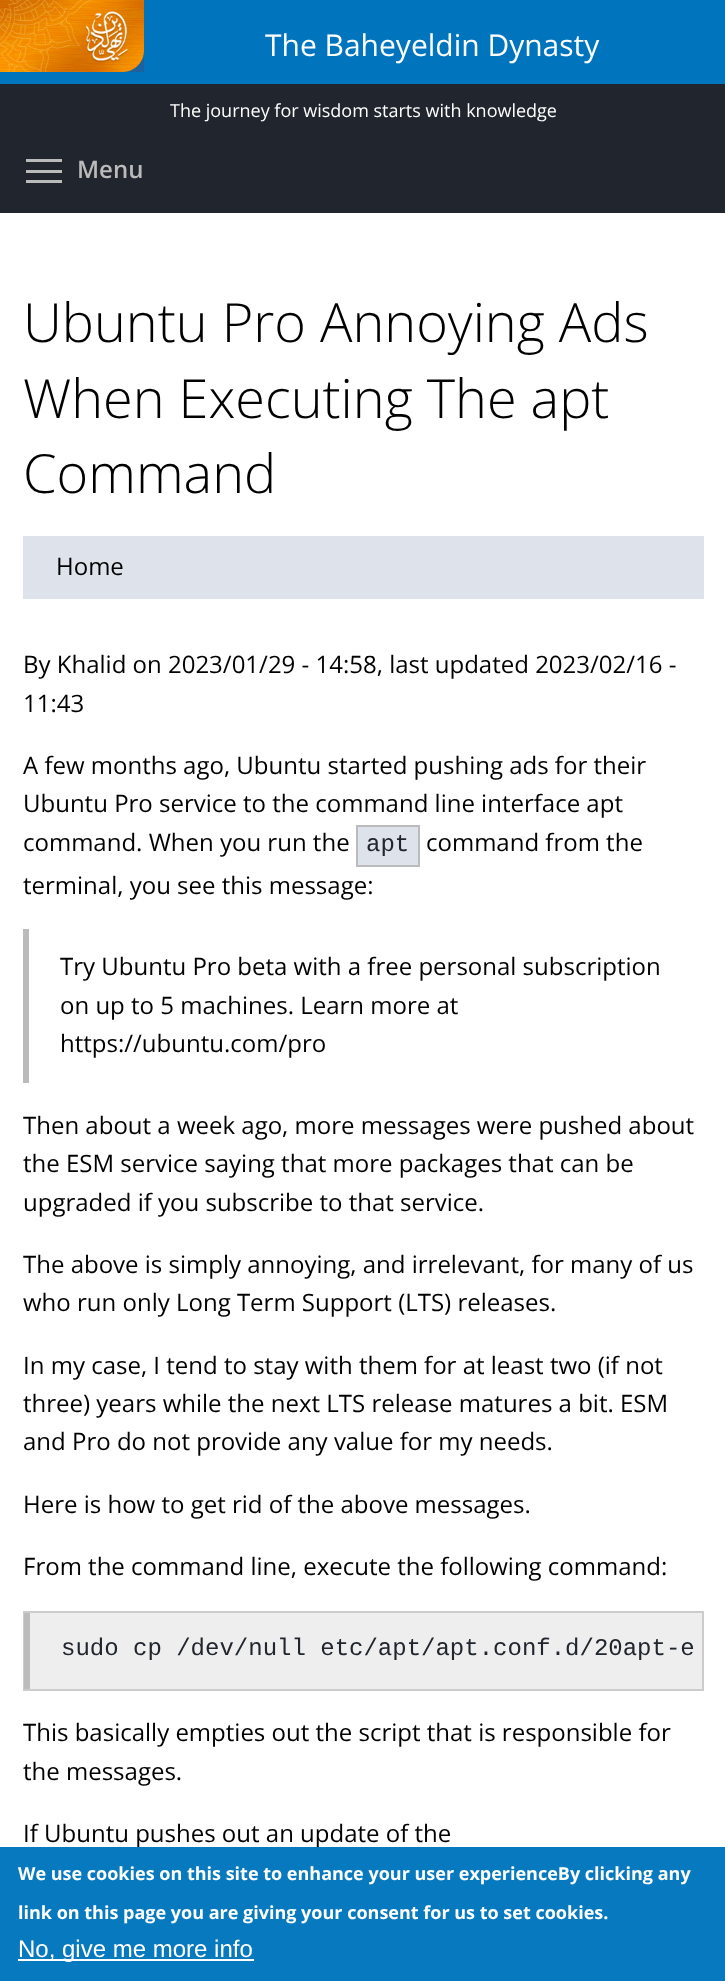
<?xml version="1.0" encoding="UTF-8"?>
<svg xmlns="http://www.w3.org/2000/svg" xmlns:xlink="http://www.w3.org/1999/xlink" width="725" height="1981">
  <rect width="100%" height="100%" fill="#ffffff" />
  <rect y="84" width="725" height="129" fill="#20252e" />
  <rect width="725" height="84" fill="#0074bd" />
  <image x="0" y="0" width="144" height="72" xlink:href="image1.png" />
  <rect x="26" y="170" width="36" height="3" fill="#bcbbbb" />
  <rect x="26" y="159" width="36" height="3" fill="#bcbbbb" />
  <rect x="26" y="180" width="36" height="3" fill="#bcbbbb" />
  <rect x="23" y="536" width="681" height="63" fill="#dee2ea" />
  <rect x="357" y="826" width="62" height="40" fill="#dee2ea" stroke="#bbbbbb" stroke-width="2" />
  <rect x="23" y="929" width="6" height="154" fill="#bbbbbb" />
  <rect x="30" y="1613" width="672" height="76" fill="#eeeeee" />
  <rect x="24" y="1612" width="679" height="78" fill="none" stroke="#cccccc" stroke-width="2" />
  <rect x="24" y="1613" width="6" height="76" fill="#bbbbbb" />
  <text x="265" y="56" style="font-family: Open Sans; font-size: 30px; fill: #fffffe">The Baheyeldin Dynasty</text>
  <text x="170" y="117" style="font-family: Open Sans; font-size: 18px; fill: #fffffe">The journey for wisdom starts with knowledge</text>
  <text x="77" y="178" style="font-family: Open Sans; font-size: 24px; font-weight: 600; fill: #bcbbbb">Menu</text>
  <text x="23" y="342" style="font-family: Open Sans; font-size: 54px; font-weight: 300; fill: #000001">Ubuntu Pro Annoying Ads</text>
  <text x="23" y="418" style="font-family: Open Sans; font-size: 54px; font-weight: 300; fill: #000001">When Executing The apt</text>
  <text x="23" y="493" style="font-family: Open Sans; font-size: 54px; font-weight: 300; fill: #000001">Command</text>
  <text x="56" y="575" style="font-family: Open Sans; font-size: 24px; fill: #000001">Home</text>
  <text x="23" y="673" style="font-family: Open Sans; font-size: 24px; fill: #000001">By Khalid on 2023/01/29 - 14:58, last updated 2023/02/16 -</text>
  <text x="23" y="712" style="font-family: Open Sans; font-size: 24px; fill: #000001">11:43</text>
  <text x="23" y="774" style="font-family: Open Sans; font-size: 24px; fill: #000001">A few months ago, Ubuntu started pushing ads for their</text>
  <text x="23" y="812" style="font-family: Open Sans; font-size: 24px; fill: #000001">Ubuntu Pro service to the command line interface apt</text>
  <text x="23" y="851" style="font-family: Open Sans; font-size: 24px; fill: #000001">command. When you run the</text>
  <text x="366" y="851" style="font-family: Liberation Mono; font-size: 24px; fill: #20252e">apt</text>
  <text x="426" y="851" style="font-family: Open Sans; font-size: 24px; fill: #000001">command from the</text>
  <text x="23" y="894" style="font-family: Open Sans; font-size: 24px; fill: #000001">terminal, you see this message:</text>
  <text x="60" y="975" style="font-family: Open Sans; font-size: 24px; fill: #000001">Try Ubuntu Pro beta with a free personal subscription</text>
  <text x="60" y="1014" style="font-family: Open Sans; font-size: 24px; fill: #000001">on up to 5 machines. Learn more at</text>
  <text x="60" y="1052" style="font-family: Open Sans; font-size: 24px; fill: #000001">https://ubuntu.com/pro</text>
  <text x="23" y="1134" style="font-family: Open Sans; font-size: 24px; fill: #000001">Then about a week ago, more messages were pushed about</text>
  <text x="23" y="1172" style="font-family: Open Sans; font-size: 24px; fill: #000001">the ESM service saying that more packages that can be</text>
  <text x="23" y="1211" style="font-family: Open Sans; font-size: 24px; fill: #000001">upgraded if you subscribe to that service.</text>
  <text x="23" y="1273" style="font-family: Open Sans; font-size: 24px; fill: #000001">The above is simply annoying, and irrelevant, for many of us</text>
  <text x="23" y="1311" style="font-family: Open Sans; font-size: 24px; fill: #000001">who run only Long Term Support (LTS) releases.</text>
  <text x="23" y="1374" style="font-family: Open Sans; font-size: 24px; fill: #000001">In my case, I tend to stay with them for at least two (if not</text>
  <text x="23" y="1412" style="font-family: Open Sans; font-size: 24px; fill: #000001">three) years while the next LTS release matures a bit. ESM</text>
  <text x="23" y="1450" style="font-family: Open Sans; font-size: 24px; fill: #000001">and Pro do not provide any value for my needs.</text>
  <text x="23" y="1513" style="font-family: Open Sans; font-size: 24px; fill: #000001">Here is how to get rid of the above messages.</text>
  <text x="23" y="1575" style="font-family: Open Sans; font-size: 24px; fill: #000001">From the command line, execute the following command:</text>
  <text x="61" y="1655" style="font-family: Liberation Mono; font-size: 24px; fill: #20252e">sudo cp /dev/null etc/apt/apt.conf.d/20apt-e</text>
  <text x="23" y="1741" style="font-family: Open Sans; font-size: 24px; fill: #000001">This basically empties out the script that is responsible for</text>
  <text x="23" y="1780" style="font-family: Open Sans; font-size: 24px; fill: #000001">the messages.</text>
  <text x="23" y="1842" style="font-family: Open Sans; font-size: 24px; fill: #000001">If Ubuntu pushes out an update of the</text>
  <rect y="1847" width="725" height="134" fill="#0779bf" />
  <text x="18" y="1880" style="font-family: Open Sans; font-size: 18px; font-weight: bold; fill: #fffffe">We use cookies on this site to enhance your user experienceBy clicking any</text>
  <text x="18" y="1919" style="font-family: Open Sans; font-size: 18px; font-weight: bold; fill: #fffffe">link on this page you are giving your consent for us to set cookies.</text>
  <rect x="18" y="1959" width="236" height="2" fill="#ffffff" />
  <text x="18" y="1957" style="font-family: Liberation Sans; font-size: 24px; fill: #fffffe">No, give me more info</text>
</svg>
